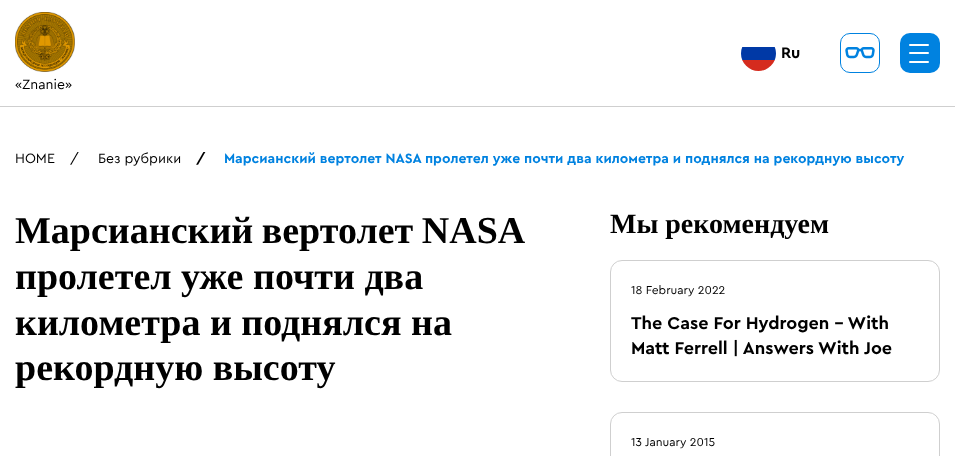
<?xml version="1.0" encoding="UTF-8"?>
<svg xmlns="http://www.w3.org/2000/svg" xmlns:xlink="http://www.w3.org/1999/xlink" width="955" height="456">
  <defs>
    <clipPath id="clip1"><rect x="741" y="36" width="35" height="35" rx="17.5" /></clipPath>
  </defs>
  <rect width="100%" height="100%" fill="#ffffff" />
  <rect y="106" width="955" height="1" fill="#cfcfcf" />
  <g clip-path="url(#clip1)">
    <rect x="741" y="47" width="35" height="13" fill="#0039a6" />
    <rect x="742" y="60" width="33" height="11" fill="#d52b1e" />
  </g>
  <rect x="840.5" y="33.5" width="39" height="39" rx="9.5" fill="none" stroke="#0082e0" />
  <image x="845" y="47" width="30" height="12" xlink:href="image1.png" />
  <rect x="900" y="33" width="40" height="40" rx="10" fill="#0082e0" />
  <rect x="909" y="61" width="20" height="2" rx="1" fill="#ffffff" />
  <rect x="909" y="44" width="20" height="2" rx="1" fill="#ffffff" />
  <rect x="909" y="52" width="20" height="2" rx="1" fill="#ffffff" />
  <image x="15" y="12" width="60" height="60" xlink:href="image2.png" />
  <rect x="610.5" y="260.5" width="329" height="121" rx="11.5" fill="none" stroke="#cfcfcf" />
  <rect x="610.5" y="412.5" width="329" height="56" rx="11.5" fill="none" stroke="#cfcfcf" />
  <text x="781" y="58" style="font-family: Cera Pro; font-size: 16px; font-weight: bold; fill: #000000">Ru</text>
  <text x="15" y="89" style="font-family: Cera Pro; font-size: 14px; fill: #000000">«Znanie»</text>
  <text x="15" y="163" style="font-family: Cera Pro; font-size: 14px; fill: #000000">HOME</text>
  <text x="70" y="163" style="font-family: Cera Pro; font-size: 14px; fill: #000000">/</text>
  <text x="98" y="163" style="font-family: Cera Pro; font-size: 14px; fill: #000000">Без рубрики</text>
  <text x="196" y="163" style="font-family: Cera Pro; font-size: 14px; font-weight: bold; fill: #000000">/</text>
  <text x="224" y="163" style="font-family: Cera Pro; font-size: 14px; font-weight: bold; fill: #0082e0">Марсианский вертолет NASA пролетел уже почти два километра и поднялся на рекордную высоту</text>
  <text x="15" y="243" word-spacing="-1" style="font-family: Liberation Serif; font-size: 38px; font-weight: bold; fill: #000000">Марсианский вертолет NASA</text>
  <text x="15" y="289" style="font-family: Liberation Serif; font-size: 38px; font-weight: bold; fill: #000000">пролетел уже почти два</text>
  <text x="15" y="335" style="font-family: Liberation Serif; font-size: 38px; font-weight: bold; fill: #000000">километра и поднялся на</text>
  <text x="15" y="380" style="font-family: Liberation Serif; font-size: 38px; font-weight: bold; fill: #000000">рекордную высоту</text>
  <text x="610" y="233" style="font-family: Liberation Serif; font-size: 28px; font-weight: bold; fill: #000000">Мы рекомендуем</text>
  <text x="631" y="294" style="font-family: Cera Pro; font-size: 12px; fill: #000000">18 February 2022</text>
  <text x="631" y="329" style="font-family: Cera Pro; font-size: 18px; font-weight: bold; fill: #000000">The Case For Hydrogen – With</text>
  <text x="631" y="354" style="font-family: Cera Pro; font-size: 18px; font-weight: bold; fill: #000000">Matt Ferrell | Answers With Joe</text>
  <text x="631" y="446" style="font-family: Cera Pro; font-size: 12px; fill: #000000">13 January 2015</text>
</svg>
